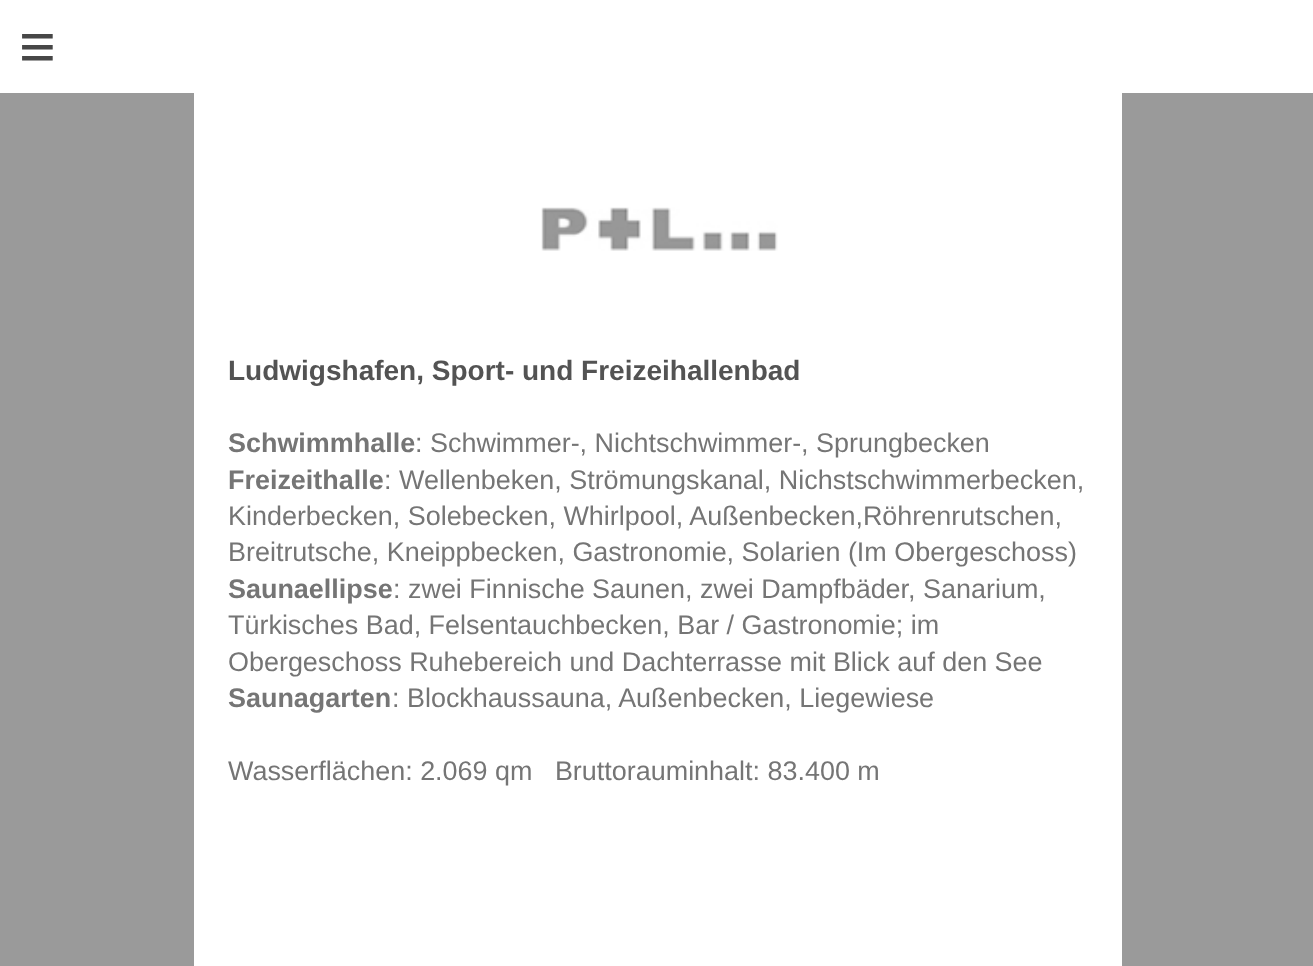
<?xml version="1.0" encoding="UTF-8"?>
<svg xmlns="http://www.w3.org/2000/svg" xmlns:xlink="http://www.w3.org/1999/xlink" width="1313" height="966">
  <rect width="100%" height="100%" fill="#9a9a9a" />
  <rect width="1313" height="93" fill="#ffffff" />
  <rect x="194" y="93" width="928" height="873" fill="#ffffff" />
  <image x="541" y="207" width="237" height="44" xlink:href="image1.png" />
  <text x="19" y="68" style="font-family: Liberation Sans; font-size: 63px; letter-spacing: 18px; fill: #474747">≡</text>
  <text x="228" y="380" style="font-family: Liberation Sans; font-size: 28px; font-weight: bold; fill: #535353">Ludwigshafen, Sport- und Freizeihallenbad</text>
  <text x="228" y="452" style="font-family: Liberation Sans; font-size: 26.95px; font-weight: bold; fill: #757575">Schwimmhalle</text>
  <text x="415" y="452" style="font-family: Liberation Sans; font-size: 26.95px; fill: #757575">: Schwimmer-, Nichtschwimmer-, Sprungbecken</text>
  <text x="228" y="489" style="font-family: Liberation Sans; font-size: 26.95px; font-weight: bold; fill: #757575">Freizeithalle</text>
  <text x="384" y="489" style="font-family: Liberation Sans; font-size: 26.95px; fill: #757575">: Wellenbeken, Strömungskanal, Nichstschwimmerbecken,</text>
  <text x="228" y="525" style="font-family: Liberation Sans; font-size: 26.95px; fill: #757575">Kinderbecken, Solebecken, Whirlpool, Außenbecken,Röhrenrutschen,</text>
  <text x="228" y="561" style="font-family: Liberation Sans; font-size: 26.95px; fill: #757575">Breitrutsche, Kneippbecken, Gastronomie, Solarien (Im Obergeschoss)</text>
  <text x="228" y="598" style="font-family: Liberation Sans; font-size: 26.95px; font-weight: bold; fill: #757575">Saunaellipse</text>
  <text x="393" y="598" style="font-family: Liberation Sans; font-size: 26.95px; fill: #757575">: zwei Finnische Saunen, zwei Dampfbäder, Sanarium,</text>
  <text x="228" y="634" style="font-family: Liberation Sans; font-size: 26.95px; fill: #757575">Türkisches Bad, Felsentauchbecken, Bar / Gastronomie; im</text>
  <text x="228" y="671" style="font-family: Liberation Sans; font-size: 26.95px; fill: #757575">Obergeschoss Ruhebereich und Dachterrasse mit Blick auf den See</text>
  <text x="228" y="707" style="font-family: Liberation Sans; font-size: 26.95px; font-weight: bold; fill: #757575">Saunagarten</text>
  <text x="392" y="707" style="font-family: Liberation Sans; font-size: 26.95px; fill: #757575">: Blockhaussauna, Außenbecken, Liegewiese</text>
  <text x="228" y="780" style="font-family: Liberation Sans; font-size: 26.95px; fill: #757575" xml:space="preserve">Wasserflächen: 2.069 qm   Bruttorauminhalt: 83.400 m</text>
</svg>
